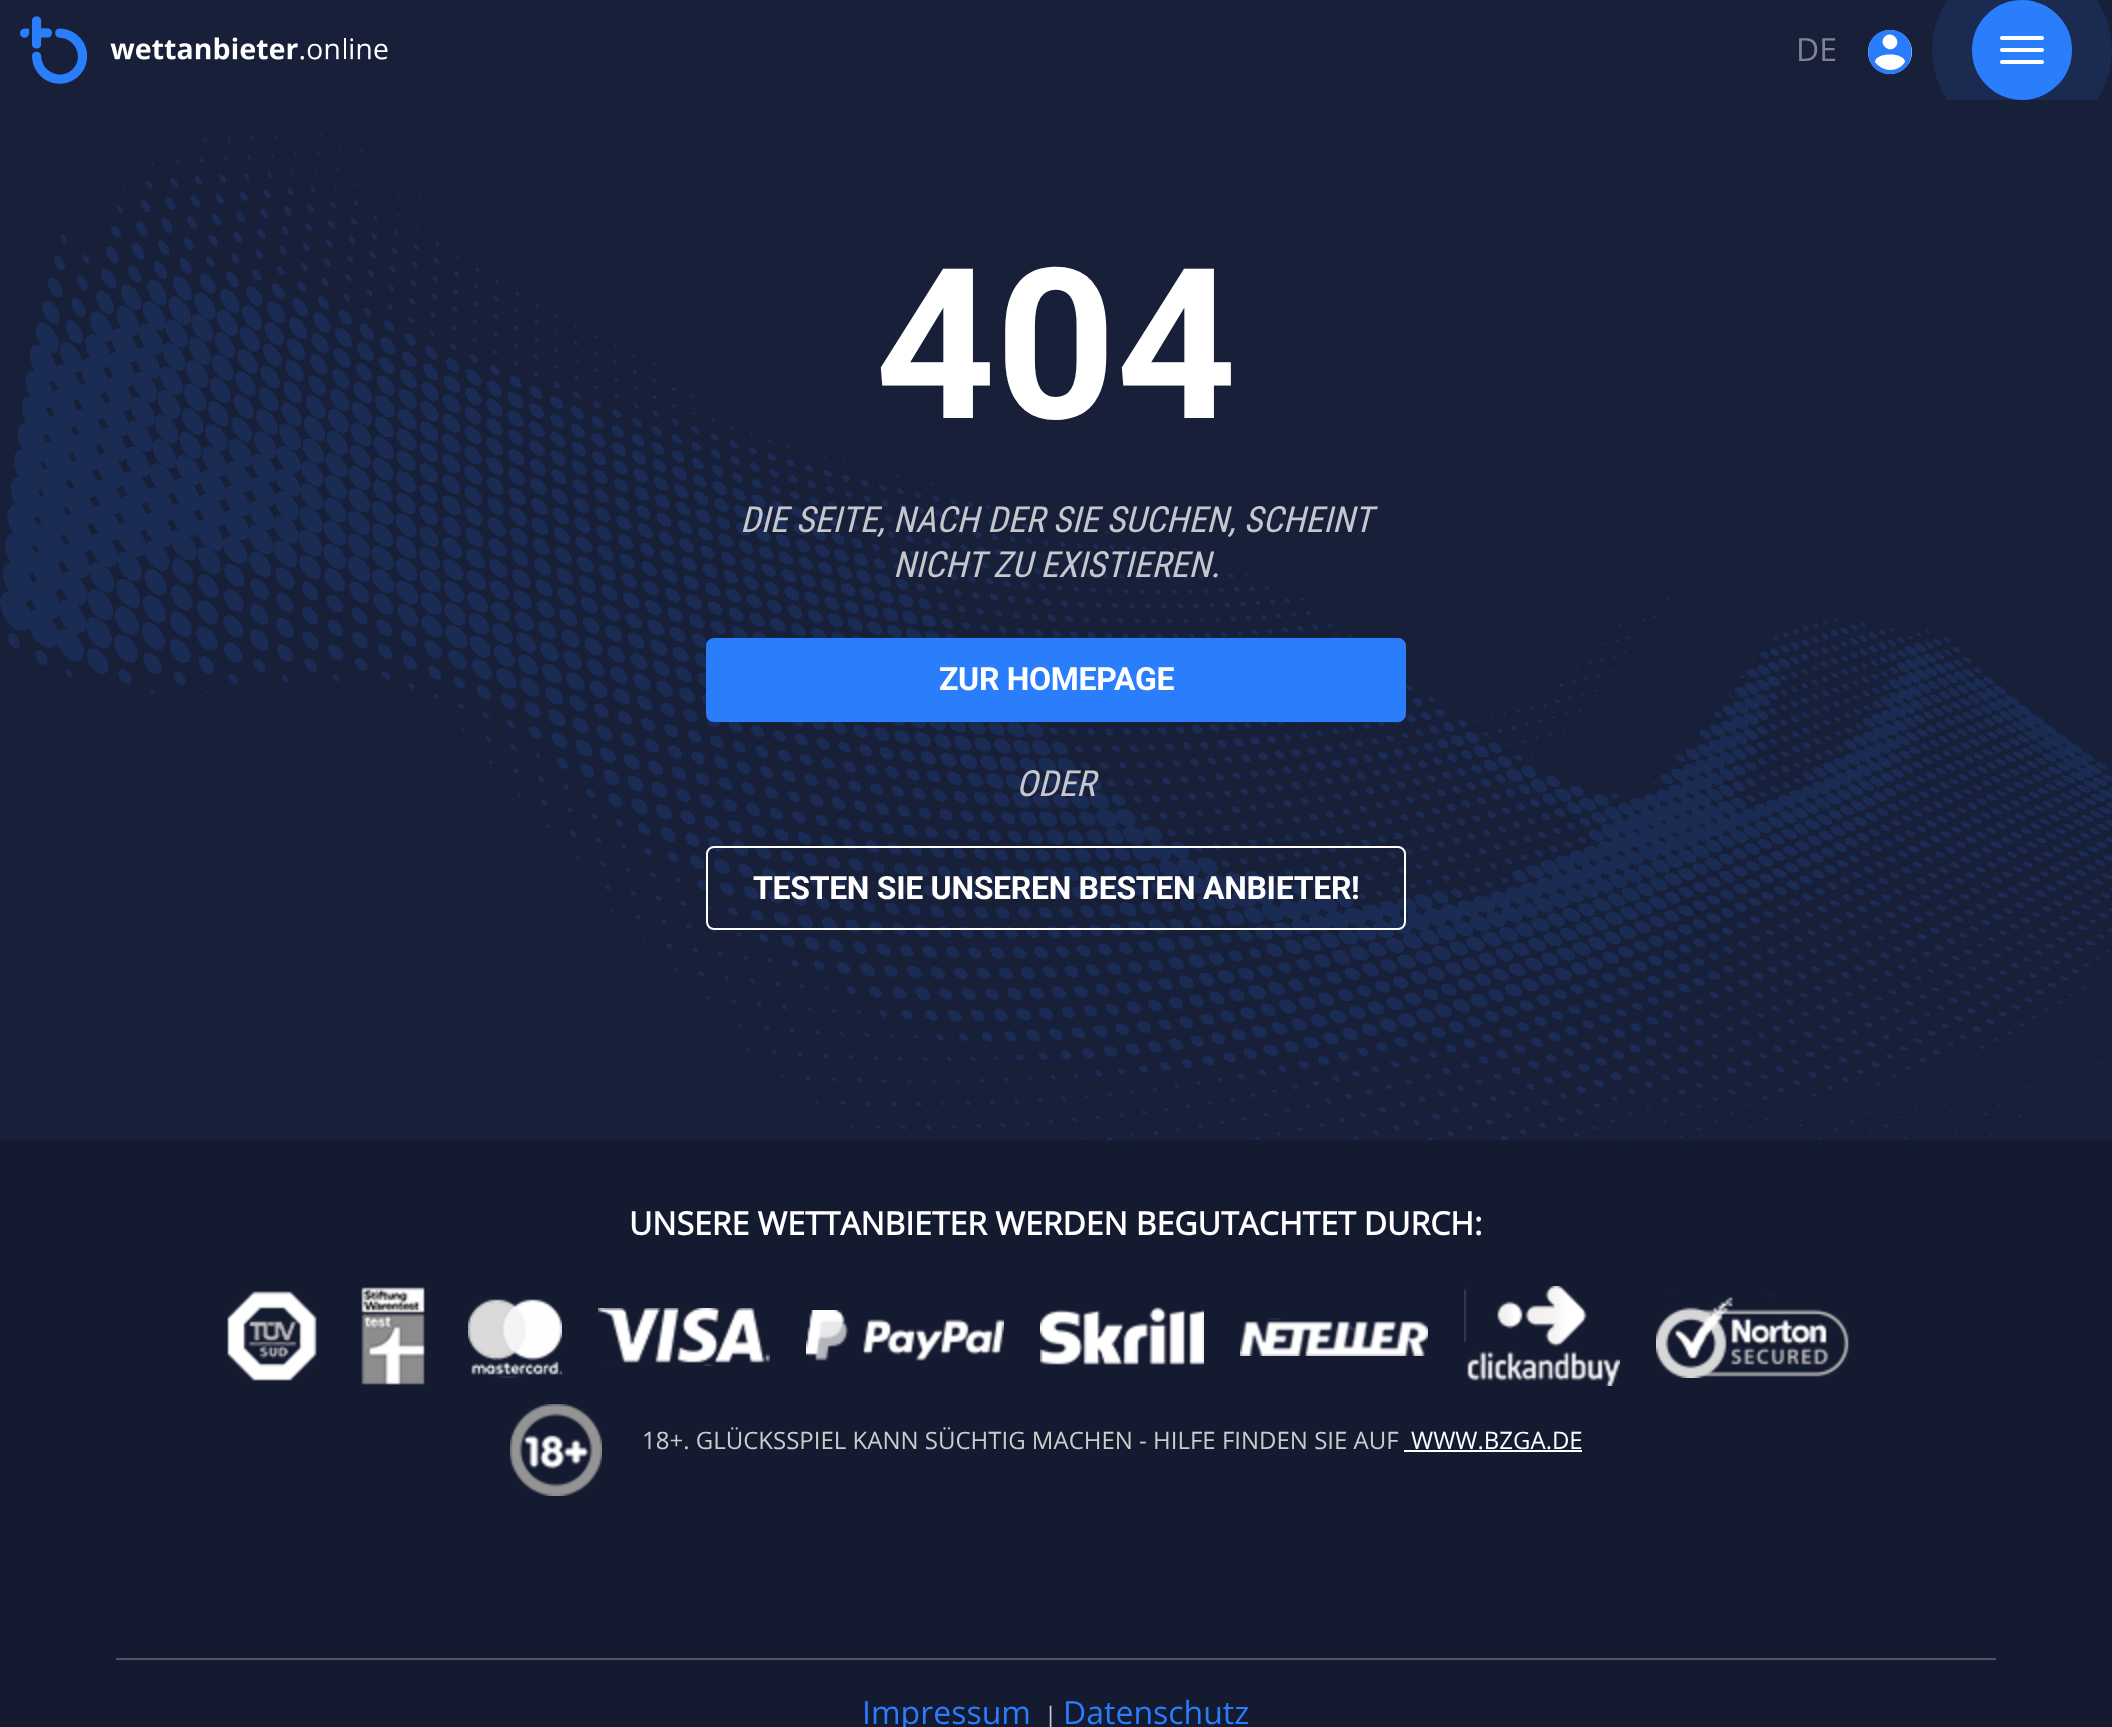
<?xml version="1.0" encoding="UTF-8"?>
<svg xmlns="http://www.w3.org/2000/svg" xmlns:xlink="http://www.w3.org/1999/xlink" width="2112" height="1727">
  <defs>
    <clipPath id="clip1"><rect x="1932" width="180" height="100" /></clipPath>
  </defs>
  <rect width="100%" height="100%" fill="#181f38" />
  <image x="20" y="16" width="368" height="68" xlink:href="image1.png" />
  <circle cx="1890" cy="52" r="22" fill="#ffffff" />
  <path d="M 1890 30 c -29 0 -29 44 0 44 c 29 0 29 -44 0 -44 z m 5 7 c 7 7 -3 17 -10 10 c -7 -7 3 -17 10 -10 z m -13 31 c -3 -2 -6 -4 -7 -6 c 0 -10 30 -10 30 0 c -5 8 -15 10 -23 6 z" fill="#2a7cfb" fill-rule="evenodd" />
  <image x="0" y="117" width="2112" height="1023" xlink:href="image2.png" />
  <g clip-path="url(#clip1)">
    <circle cx="2022" cy="50" r="70" fill="#2a7dfb" stroke="#1a2a50" stroke-width="40" />
  </g>
  <rect x="2000" y="36" width="44" height="4" rx="2" fill="#ffffff" />
  <rect x="2000" y="48" width="44" height="4" rx="2" fill="#ffffff" />
  <rect x="2000" y="60" width="44" height="4" rx="2" fill="#ffffff" />
  <rect x="707" y="639" width="698" height="82" rx="7" fill="#2a7dfb" stroke="#2a7dfb" stroke-width="2" />
  <rect x="707" y="847" width="698" height="82" rx="7" fill="none" stroke="#ffffff" stroke-width="2" />
  <rect y="1140" width="2112" height="587" fill="#141a30" />
  <image x="227" y="1291" width="90" height="90" xlink:href="image3.png" />
  <image x="361" y="1287" width="64" height="98" xlink:href="image4.png" />
  <image x="468" y="1299" width="94" height="79" xlink:href="image5.png" />
  <image x="598" y="1308" width="172" height="58" xlink:href="image6.png" />
  <image x="806" y="1310" width="198" height="51" xlink:href="image7.png" />
  <image x="1040" y="1307" width="164" height="58" xlink:href="image8.png" />
  <image x="1240" y="1318" width="188" height="38" xlink:href="image9.png" />
  <image x="1464" y="1286" width="156" height="100" xlink:href="image10.png" />
  <image x="1656" y="1294" width="193" height="84" xlink:href="image11.png" />
  <rect x="116" y="1658" width="1880" height="2" fill="#4f5364" />
  <image x="510" y="1404" width="92" height="92" xlink:href="image12.png" />
  <rect x="1404" y="1450" width="178" height="2" fill="#ffffff" />
  <text x="1796" y="61" style="font-family: Open Sans; font-size: 32px; fill: #808492">DE</text>
  <text x="875" y="418" style="font-family: Roboto; font-size: 210px; font-weight: bold; fill: #ffffff">404</text>
  <text x="740" y="532" style="font-family: Roboto Condensed; font-size: 36px; font-style: italic; fill: #c5c7ce">DIE SEITE, NACH DER SIE SUCHEN, SCHEINT</text>
  <text x="893" y="577" style="font-family: Roboto Condensed; font-size: 36px; font-style: italic; fill: #c5c7ce">NICHT ZU EXISTIEREN.</text>
  <text x="939" y="690" style="font-family: Roboto; font-size: 32px; font-weight: bold; letter-spacing: -0.3px; fill: #ffffff">ZUR HOMEPAGE</text>
  <text x="1016" y="796" style="font-family: Roboto Condensed; font-size: 36px; font-style: italic; fill: #c5c7ce">ODER</text>
  <text x="753" y="899" style="font-family: Roboto; font-size: 32px; font-weight: bold; letter-spacing: -0.3px; fill: #ffffff">TESTEN SIE UNSEREN BESTEN ANBIETER!</text>
  <text x="629" y="1235" style="font-family: Open Sans; font-size: 32px; font-weight: bold; fill: #ffffff">UNSERE WETTANBIETER WERDEN BEGUTACHTET DURCH:</text>
  <text x="642" y="1449" style="font-family: Open Sans; font-size: 24px; fill: #cccccc">18+. GLÜCKSSPIEL KANN SÜCHTIG MACHEN - HILFE FINDEN SIE AUF</text>
  <text x="1411" y="1449" style="font-family: Open Sans; font-size: 24px; fill: #ffffff">WWW.BZGA.DE</text>
  <text x="862" y="1724" style="font-family: Open Sans; font-size: 32px; fill: #2a7dfb">Impressum</text>
  <text x="1044" y="1724" style="font-family: Open Sans; font-size: 24px; fill: #cccccc">|</text>
  <text x="1063" y="1724" style="font-family: Open Sans; font-size: 32px; fill: #2a7dfb">Datenschutz</text>
</svg>
